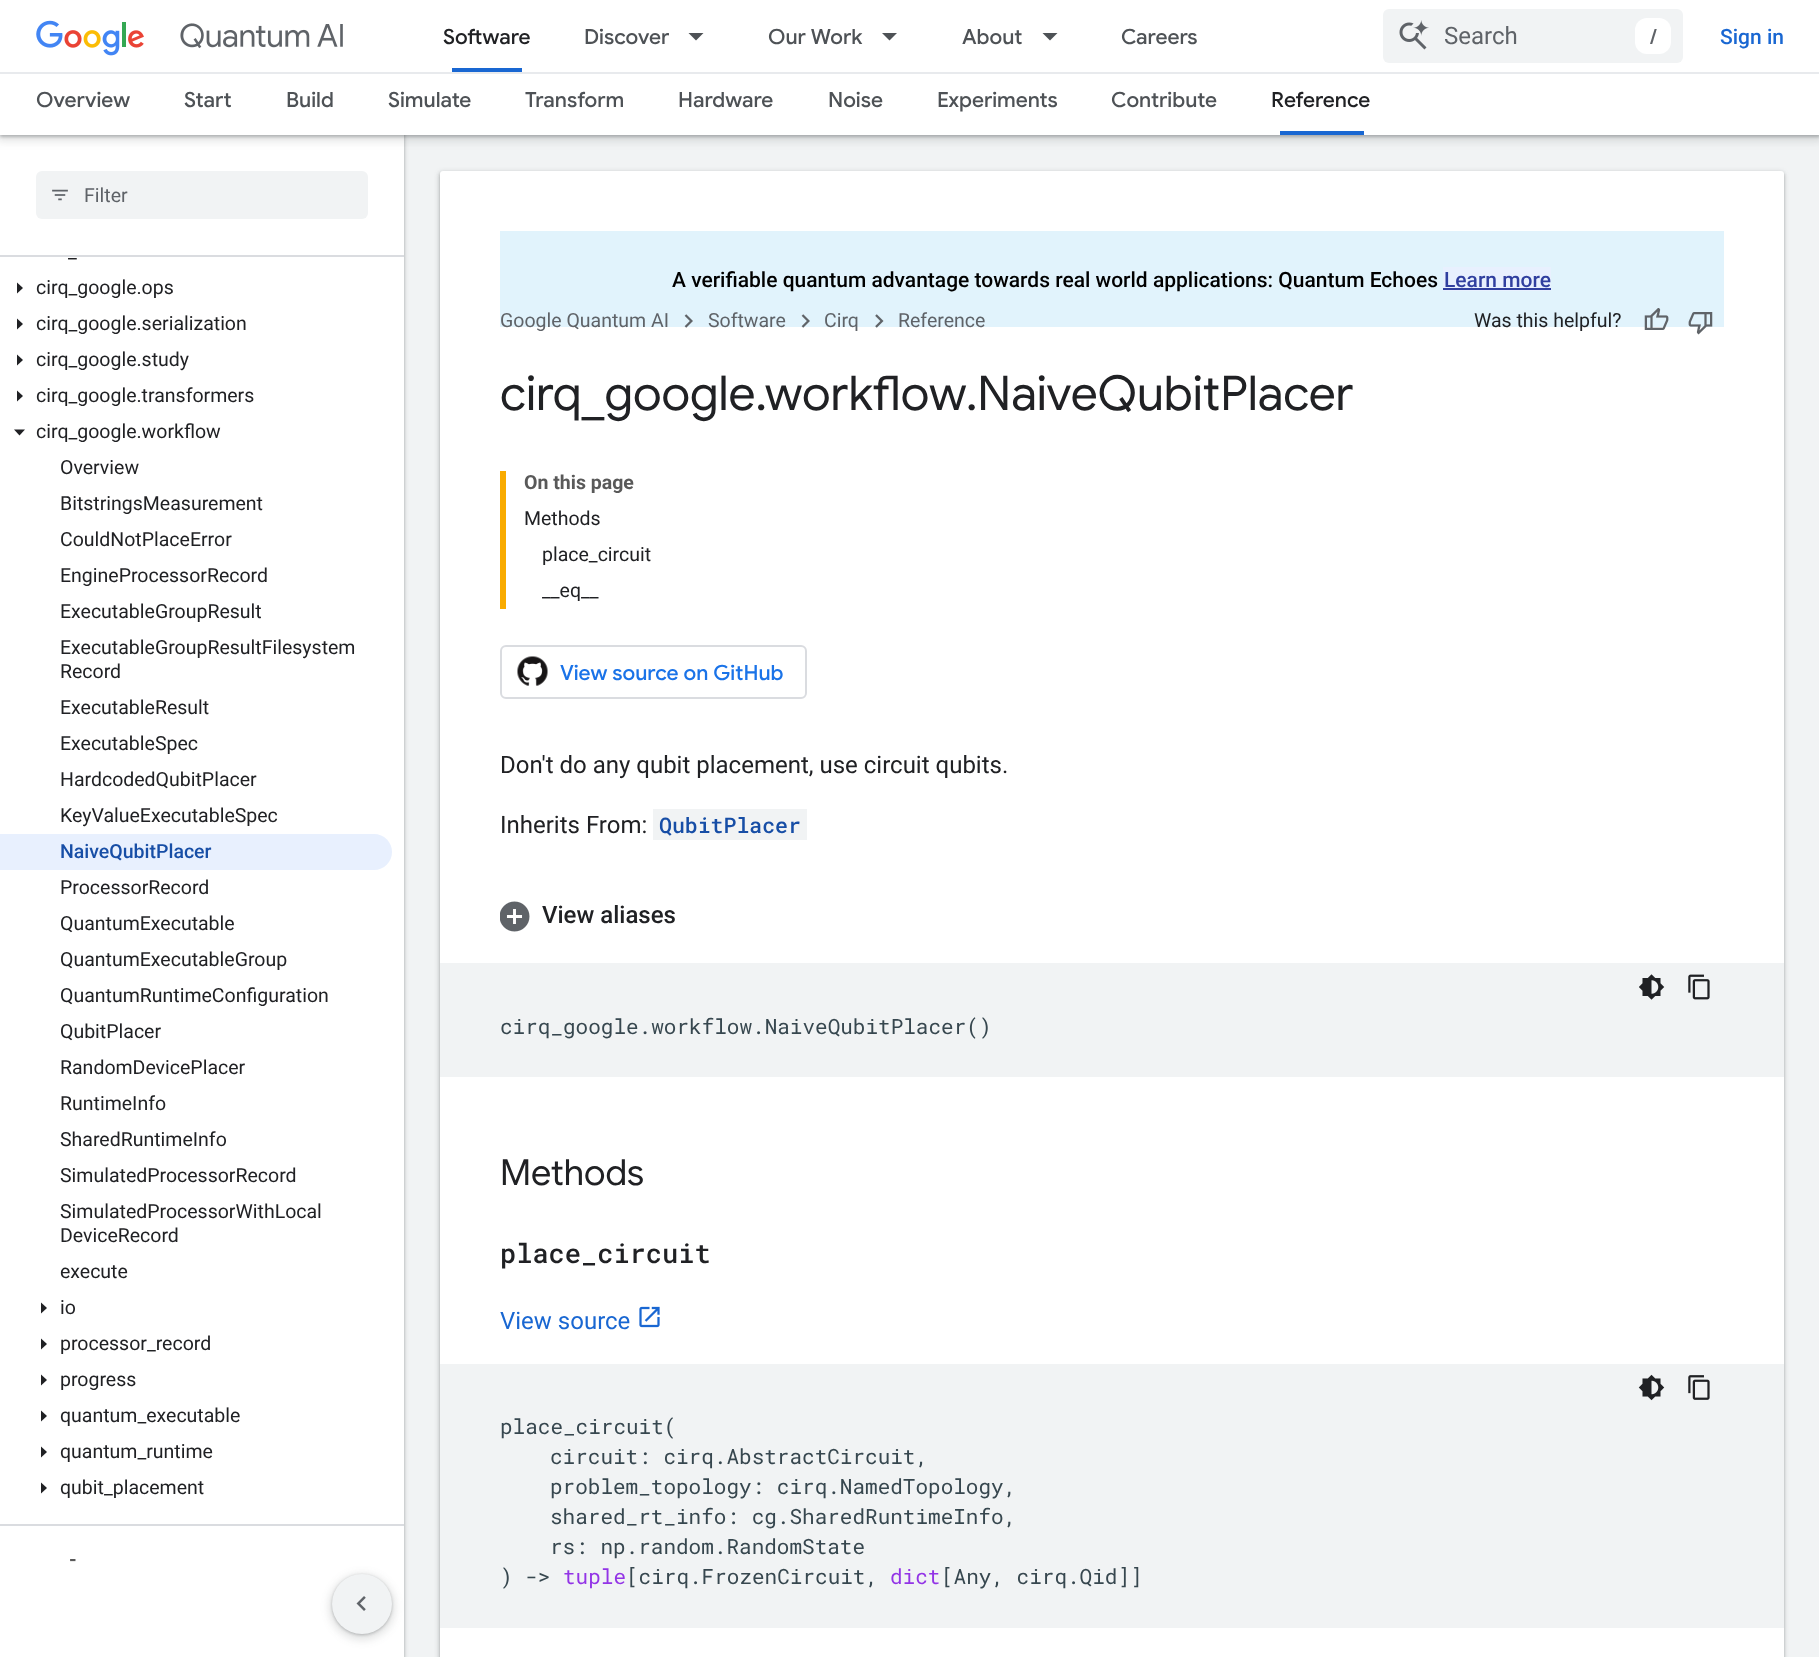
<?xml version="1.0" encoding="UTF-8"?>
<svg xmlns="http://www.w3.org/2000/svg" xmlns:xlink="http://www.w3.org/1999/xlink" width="1819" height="1657">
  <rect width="100%" height="100%" fill="#f1f3f4" />
  <rect x="-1" width="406" height="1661" fill="#3c4043" fill-opacity="0.15" filter="blur(2px)" />
  <rect y="2" width="404" height="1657" fill="#3c4043" fill-opacity="0.3" filter="blur(1.5px)" />
  <rect y="257" width="404" height="1400" fill="#ffffff" />
  <rect y="135" width="404" height="120" fill="#ffffff" />
  <rect x="-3" y="-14" width="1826" height="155" fill="#3c4043" fill-opacity="0.15" filter="blur(4.5px)" />
  <rect y="-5" width="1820" height="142" fill="#3c4043" fill-opacity="0.3" filter="blur(1.5px)" />
  <rect width="1819" height="72" fill="#ffffff" />
  <rect y="72" width="1819" height="2" fill="#e8eaed" />
  <image x="36" y="20" width="307" height="36" xlink:href="image1.png" />
  <rect x="452" y="68" width="70" height="4" fill="#1967d2" />
  <path d="M 688.5 33 h 15 l -7.5 7.5 z" fill="#4e5256" />
  <path d="M 882 33 h 15 l -7.5 7.5 z" fill="#4e5256" />
  <path d="M 1042.5 33 h 15 l -7.5 7.5 z" fill="#4e5256" />
  <rect x="1383" y="9" width="300" height="54" rx="6" fill="#f1f3f4" />
  <image x="1399" y="20" width="30" height="30" xlink:href="image2.png" />
  <rect x="1635" y="18" width="36" height="36" rx="12" fill="#ffffff" />
  <rect y="74" width="1819" height="61" fill="#ffffff" />
  <rect x="1280" y="131" width="84" height="4" fill="#1967d2" />
  <rect y="255" width="404" height="2" fill="#dadce0" />
  <rect x="36" y="171" width="332" height="48" rx="6" fill="#f1f3f4" />
  <image x="52" y="189" width="16" height="12" xlink:href="image3.png" />
  <path d="M 17 293.5 v -11 l 6 5.5 z" fill="#202124" />
  <path d="M 17 329.5 v -11 l 6 5.5 z" fill="#202124" />
  <path d="M 17 365.5 v -11 l 6 5.5 z" fill="#202124" />
  <path d="M 17 401.5 v -11 l 6 5.5 z" fill="#202124" />
  <path d="M 14 429.5 h 11 l -5.5 6 z" fill="#202124" />
  <path d="M 0 834 h 374 c 10 0 18 8 18 18 c 0 10 -8 18 -18 18 h -374 z" fill="#e8f0fe" />
  <path d="M 41 1313.5 v -11 l 6 5.5 z" fill="#202124" />
  <path d="M 41 1349.5 v -11 l 6 5.5 z" fill="#202124" />
  <path d="M 41 1385.5 v -11 l 6 5.5 z" fill="#202124" />
  <path d="M 41 1421.5 v -11 l 6 5.5 z" fill="#202124" />
  <path d="M 41 1457.5 v -11 l 6 5.5 z" fill="#202124" />
  <path d="M 41 1493.5 v -11 l 6 5.5 z" fill="#202124" />
  <rect y="1524" width="404" height="2" fill="#dadce0" />
  <rect x="438" y="171" width="1347" height="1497" rx="5" fill="#3c4043" fill-opacity="0.15" filter="blur(2px)" />
  <rect x="440" y="173" width="1344" height="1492" rx="3" fill="#3c4043" fill-opacity="0.3" filter="blur(1.5px)" />
  <rect x="440" y="171" width="1344" height="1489" rx="3" fill="#ffffff" />
  <rect x="500" y="231" width="1224" height="96" fill="#e1f3fc" />
  <rect x="1443" y="267" width="108" height="24" fill="#e8f0fe" />
  <rect x="1443" y="288" width="108" height="2" fill="#303f9f" />
  <image x="684" y="314" width="9" height="14" xlink:href="image4.png" />
  <image x="801" y="314" width="9" height="14" xlink:href="image4.png" />
  <image x="875" y="314" width="9" height="14" xlink:href="image5.png" />
  <image x="1644" y="308" width="25" height="22" xlink:href="image6.png" />
  <image x="1688" y="312" width="25" height="23" xlink:href="image7.png" />
  <rect x="500" y="471" width="6" height="138" fill="#f9ab00" />
  <rect x="501" y="646" width="305" height="52" rx="5" fill="none" stroke="#dadce0" stroke-width="2" />
  <image x="517" y="656" width="31" height="30" xlink:href="image8.png" />
  <rect x="653" y="809" width="154" height="31" fill="#f1f3f4" />
  <image x="500" y="901" width="30" height="31" xlink:href="image9.png" />
  <rect x="440" y="963" width="1344" height="114" fill="#f1f3f4" />
  <image x="1639" y="974" width="26" height="26" xlink:href="image10.png" />
  <image x="1688" y="974" width="22" height="26" xlink:href="image11.png" />
  <image x="639" y="1306" width="21" height="22" xlink:href="image12.png" />
  <rect x="440" y="1364" width="1344" height="264" fill="#f1f3f4" />
  <image x="1638" y="1374" width="27" height="27" xlink:href="image13.png" />
  <image x="1688" y="1375" width="22" height="25" xlink:href="image14.png" />
  <rect x="329" y="1574" width="66" height="66" rx="33" fill="#3c4043" fill-opacity="0.15" filter="blur(4.5px)" />
  <rect x="332" y="1575" width="60" height="60" rx="30" fill="#3c4043" fill-opacity="0.3" filter="blur(1.5px)" />
  <circle cx="362" cy="1604" r="30" fill="#f1f3f4" />
  <image x="356" y="1596" width="10" height="15" xlink:href="image15.png" />
  <text x="443" y="44" style="font-family: Google Sans; font-size: 21px; font-weight: 500; fill: #202124">Software</text>
  <text x="584" y="44" style="font-family: Google Sans; font-size: 21px; font-weight: 500; fill: #4e5256">Discover</text>
  <text x="768" y="44" style="font-family: Google Sans; font-size: 21px; font-weight: 500; fill: #4e5256">Our Work</text>
  <text x="962" y="44" style="font-family: Google Sans; font-size: 21px; font-weight: 500; fill: #4e5256">About</text>
  <text x="1121" y="44" style="font-family: Google Sans; font-size: 21px; font-weight: 500; fill: #4e5256">Careers</text>
  <text x="1444" y="44" style="font-family: Roboto; font-size: 24px; fill: #5f6368">Search</text>
  <text x="1650" y="44" style="font-family: Google Sans; font-size: 21px; font-weight: 500; fill: #5f6368">/</text>
  <text x="1720" y="44" style="font-family: Roboto; font-size: 21px; font-weight: 500; fill: #1967d2">Sign in</text>
  <text x="36" y="107" style="font-family: Google Sans; font-size: 21px; font-weight: 500; fill: #4e5256">Overview</text>
  <text x="184" y="107" style="font-family: Google Sans; font-size: 21px; font-weight: 500; fill: #4e5256">Start</text>
  <text x="286" y="107" style="font-family: Google Sans; font-size: 21px; font-weight: 500; fill: #4e5256">Build</text>
  <text x="388" y="107" style="font-family: Google Sans; font-size: 21px; font-weight: 500; fill: #4e5256">Simulate</text>
  <text x="525" y="107" style="font-family: Google Sans; font-size: 21px; font-weight: 500; fill: #4e5256">Transform</text>
  <text x="678" y="107" style="font-family: Google Sans; font-size: 21px; font-weight: 500; fill: #4e5256">Hardware</text>
  <text x="828" y="107" style="font-family: Google Sans; font-size: 21px; font-weight: 500; fill: #4e5256">Noise</text>
  <text x="937" y="107" style="font-family: Google Sans; font-size: 21px; font-weight: 500; fill: #4e5256">Experiments</text>
  <text x="1111" y="107" style="font-family: Google Sans; font-size: 21px; font-weight: 500; fill: #4e5256">Contribute</text>
  <text x="1271" y="107" style="font-family: Google Sans; font-size: 21px; font-weight: 500; fill: #202124">Reference</text>
  <text x="84" y="202" style="font-family: Roboto; font-size: 19.5px; fill: #5f6368">Filter</text>
  <text x="68" y="258" style="font-family: Roboto; font-size: 19.5px; fill: #202124">_</text>
  <text x="36" y="294" style="font-family: Roboto; font-size: 19.5px; fill: #202124">cirq_google.ops</text>
  <text x="36" y="330" style="font-family: Roboto; font-size: 19.5px; fill: #202124">cirq_google.serialization</text>
  <text x="36" y="366" style="font-family: Roboto; font-size: 19.5px; fill: #202124">cirq_google.study</text>
  <text x="36" y="402" style="font-family: Roboto; font-size: 19.5px; fill: #202124">cirq_google.transformers</text>
  <text x="36" y="438" style="font-family: Roboto; font-size: 19.5px; fill: #202124">cirq_google.workflow</text>
  <text x="60" y="474" style="font-family: Roboto; font-size: 19.5px; fill: #202124">Overview</text>
  <text x="60" y="510" style="font-family: Roboto; font-size: 19.5px; fill: #202124">BitstringsMeasurement</text>
  <text x="60" y="546" style="font-family: Roboto; font-size: 19.5px; fill: #202124">CouldNotPlaceError</text>
  <text x="60" y="582" style="font-family: Roboto; font-size: 19.5px; fill: #202124">EngineProcessorRecord</text>
  <text x="60" y="618" style="font-family: Roboto; font-size: 19.5px; fill: #202124">ExecutableGroupResult</text>
  <text x="60" y="654" style="font-family: Roboto; font-size: 19.5px; fill: #202124">ExecutableGroupResultFilesystem</text>
  <text x="60" y="678" style="font-family: Roboto; font-size: 19.5px; fill: #202124">Record</text>
  <text x="60" y="714" style="font-family: Roboto; font-size: 19.5px; fill: #202124">ExecutableResult</text>
  <text x="60" y="750" style="font-family: Roboto; font-size: 19.5px; fill: #202124">ExecutableSpec</text>
  <text x="60" y="786" style="font-family: Roboto; font-size: 19.5px; fill: #202124">HardcodedQubitPlacer</text>
  <text x="60" y="822" style="font-family: Roboto; font-size: 19.5px; fill: #202124">KeyValueExecutableSpec</text>
  <text x="60" y="858" style="font-family: Roboto; font-size: 19.5px; font-weight: 500; fill: #174ea6">NaiveQubitPlacer</text>
  <text x="60" y="894" style="font-family: Roboto; font-size: 19.5px; fill: #202124">ProcessorRecord</text>
  <text x="60" y="930" style="font-family: Roboto; font-size: 19.5px; fill: #202124">QuantumExecutable</text>
  <text x="60" y="966" style="font-family: Roboto; font-size: 19.5px; fill: #202124">QuantumExecutableGroup</text>
  <text x="60" y="1002" style="font-family: Roboto; font-size: 19.5px; fill: #202124">QuantumRuntimeConfiguration</text>
  <text x="60" y="1038" style="font-family: Roboto; font-size: 19.5px; fill: #202124">QubitPlacer</text>
  <text x="60" y="1074" style="font-family: Roboto; font-size: 19.5px; fill: #202124">RandomDevicePlacer</text>
  <text x="60" y="1110" style="font-family: Roboto; font-size: 19.5px; fill: #202124">RuntimeInfo</text>
  <text x="60" y="1146" style="font-family: Roboto; font-size: 19.5px; fill: #202124">SharedRuntimeInfo</text>
  <text x="60" y="1182" style="font-family: Roboto; font-size: 19.5px; fill: #202124">SimulatedProcessorRecord</text>
  <text x="60" y="1218" style="font-family: Roboto; font-size: 19.5px; fill: #202124">SimulatedProcessorWithLocal</text>
  <text x="60" y="1242" style="font-family: Roboto; font-size: 19.5px; fill: #202124">DeviceRecord</text>
  <text x="60" y="1278" style="font-family: Roboto; font-size: 19.5px; fill: #202124">execute</text>
  <text x="60" y="1314" style="font-family: Roboto; font-size: 19.5px; fill: #202124">io</text>
  <text x="60" y="1350" style="font-family: Roboto; font-size: 19.5px; fill: #202124">processor_record</text>
  <text x="60" y="1386" style="font-family: Roboto; font-size: 19.5px; fill: #202124">progress</text>
  <text x="60" y="1422" style="font-family: Roboto; font-size: 19.5px; fill: #202124">quantum_executable</text>
  <text x="60" y="1458" style="font-family: Roboto; font-size: 19.5px; fill: #202124">quantum_runtime</text>
  <text x="60" y="1494" style="font-family: Roboto; font-size: 19.5px; fill: #202124">qubit_placement</text>
  <text x="69" y="1566" style="font-family: Roboto; font-size: 19.5px; font-weight: bold; fill: #595959">-</text>
  <text x="672" y="287" style="font-family: Roboto; font-size: 21px; font-weight: 500; fill: #000000">A verifiable quantum advantage towards real world applications: Quantum Echoes</text>
  <text x="1444" y="287" style="font-family: Roboto; font-size: 21px; font-weight: 500; fill: #303f9f">Learn more</text>
  <text x="500" y="327" style="font-family: Roboto; font-size: 19.5px; fill: #5f6368">Google Quantum AI</text>
  <text x="708" y="327" style="font-family: Roboto; font-size: 19.5px; fill: #5f6368">Software</text>
  <text x="824" y="327" style="font-family: Roboto; font-size: 19.5px; fill: #5f6368">Cirq</text>
  <text x="898" y="327" style="font-family: Roboto; font-size: 19.5px; fill: #5f6368">Reference</text>
  <text x="1474" y="327" style="font-family: Roboto; font-size: 19.5px; fill: #202124">Was this helpful?</text>
  <text x="500" y="410" style="font-family: Google Sans; font-size: 48px; fill: #202124">cirq_google.workflow</text>
  <text x="966" y="410" style="font-family: Google Sans; font-size: 48px; fill: #202124">.NaiveQubitPlacer</text>
  <text x="524" y="489" style="font-family: Roboto; font-size: 19.5px; font-weight: bold; fill: #595959">On this page</text>
  <text x="524" y="525" style="font-family: Roboto; font-size: 19.5px; fill: #202124">Methods</text>
  <text x="542" y="561" style="font-family: Roboto; font-size: 19.5px; fill: #202124">place_circuit</text>
  <text x="542" y="597" style="font-family: Roboto; font-size: 19.5px; fill: #202124">__eq__</text>
  <text x="560" y="680" style="font-family: Google Sans; font-size: 21px; font-weight: 500; fill: #1a73e8">View source on GitHub</text>
  <text x="500" y="773" style="font-family: Roboto; font-size: 24px; fill: #202124">Don't do any qubit placement, use circuit qubits.</text>
  <text x="500" y="833" style="font-family: Roboto; font-size: 24px; fill: #202124">Inherits From:</text>
  <text x="659" y="833" style="font-family: Roboto Mono; font-size: 21.5px; font-weight: 500; fill: #174ea6">QubitPlacer</text>
  <text x="542" y="923" style="font-family: Roboto; font-size: 24px; font-weight: 500; fill: #202124">View aliases</text>
  <text x="500" y="1034" style="font-family: Roboto Mono; font-size: 21px; fill: #37474f">cirq_google.workflow.NaiveQubitPlacer()</text>
  <text x="500" y="1185" style="font-family: Google Sans; font-size: 36px; fill: #202124">Methods</text>
  <text x="500" y="1263" style="font-family: Roboto Mono; font-size: 27px; font-weight: 500; fill: #202124">place_circuit</text>
  <text x="500" y="1329" style="font-family: Roboto; font-size: 24px; fill: #1967d2">View source</text>
  <text x="500" y="1434" style="font-family: Roboto Mono; font-size: 21px; fill: #37474f">place_circuit(</text>
  <text x="550" y="1464" style="font-family: Roboto Mono; font-size: 21px; fill: #37474f">circuit: cirq.AbstractCircuit,</text>
  <text x="550" y="1494" style="font-family: Roboto Mono; font-size: 21px; fill: #37474f">problem_topology: cirq.NamedTopology,</text>
  <text x="550" y="1524" style="font-family: Roboto Mono; font-size: 21px; fill: #37474f">shared_rt_info: cg.SharedRuntimeInfo,</text>
  <text x="550" y="1554" style="font-family: Roboto Mono; font-size: 21px; fill: #37474f">rs: np.random.RandomState</text>
  <text x="500" y="1584" style="font-family: Roboto Mono; font-size: 21px; fill: #37474f">) -&gt;</text>
  <text x="563" y="1584" style="font-family: Roboto Mono; font-size: 21px; fill: #9334e6">tuple</text>
  <text x="626" y="1584" style="font-family: Roboto Mono; font-size: 21px; fill: #37474f">[cirq.FrozenCircuit,</text>
  <text x="890" y="1584" style="font-family: Roboto Mono; font-size: 21px; fill: #9334e6">dict</text>
  <text x="941" y="1584" style="font-family: Roboto Mono; font-size: 21px; fill: #37474f">[Any, cirq.Qid]]</text>
</svg>
